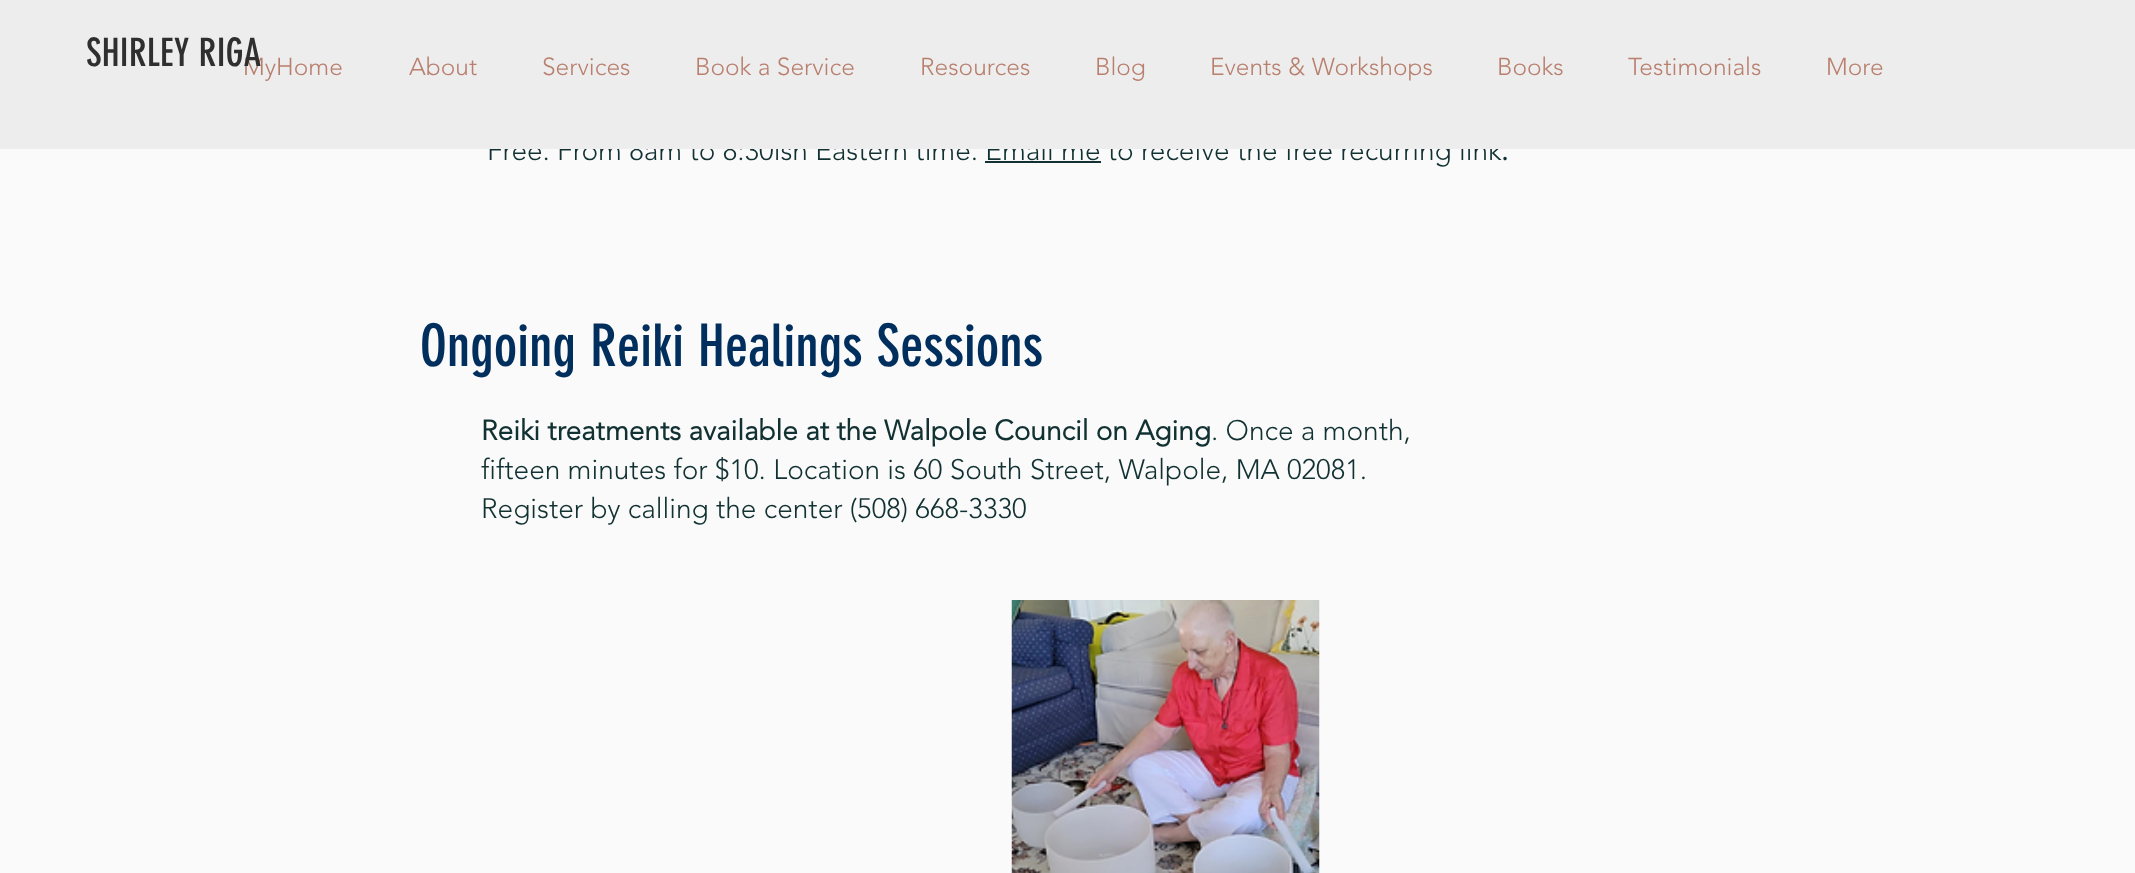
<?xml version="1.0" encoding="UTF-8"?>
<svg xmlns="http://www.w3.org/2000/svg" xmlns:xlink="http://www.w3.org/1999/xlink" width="2135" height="873">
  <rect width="100%" height="100%" fill="#fafafa" />
  <rect x="985" y="161" width="116" height="2" fill="#123132" />
  <image x="1011" y="600" width="309" height="273" xlink:href="image1.png" />
  <text x="487" y="160" style="font-family: 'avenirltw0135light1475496'; font-size: 28px; font-weight: 300; fill: #123132">Free. From 8am to 8:30ish Eastern time. Email me to receive the free recurring link</text>
  <rect width="2135" height="149" fill="#ededee" />
  <text x="243" y="75" style="font-family: 'avenirltw0135light1475496'; font-size: 24.5px; font-weight: 300; fill: #b97f6d">MyHome</text>
  <text x="86" y="66" style="font-family: 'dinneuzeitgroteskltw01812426'; font-size: 38.5px; fill: #2f2f30">SHIRLEY RIGA</text>
  <text x="1826" y="75" style="font-family: 'avenirltw0135light1475496'; font-size: 24.5px; font-weight: 300; fill: #b97f6d">More</text>
  <text x="1628" y="75" style="font-family: 'avenirltw0135light1475496'; font-size: 24.5px; font-weight: 300; fill: #b97f6d">Testimonials</text>
  <text x="1497" y="75" style="font-family: 'avenirltw0135light1475496'; font-size: 24.5px; font-weight: 300; fill: #b97f6d">Books</text>
  <text x="1210" y="75" style="font-family: 'avenirltw0135light1475496'; font-size: 24.5px; font-weight: 300; fill: #b97f6d">Events &amp; Workshops</text>
  <text x="1095" y="75" style="font-family: 'avenirltw0135light1475496'; font-size: 24.5px; font-weight: 300; fill: #b97f6d">Blog</text>
  <text x="920" y="75" style="font-family: 'avenirltw0135light1475496'; font-size: 24.5px; font-weight: 300; fill: #b97f6d">Resources</text>
  <text x="695" y="75" style="font-family: 'avenirltw0135light1475496'; font-size: 24.5px; font-weight: 300; fill: #b97f6d">Book a Service</text>
  <text x="542" y="75" style="font-family: 'avenirltw0135light1475496'; font-size: 24.5px; font-weight: 300; fill: #b97f6d">Services</text>
  <text x="409" y="75" style="font-family: 'avenirltw0135light1475496'; font-size: 24.5px; font-weight: 300; fill: #b97f6d">About</text>
  <text x="1501" y="160" style="font-family: 'avenirltw0135light1475496'; font-size: 28px; font-weight: bold; fill: #123132">.</text>
  <text x="420" y="366" style="font-family: 'dinneuzeitgroteskltw01812426'; font-size: 57.75px; fill: #002e5d">Ongoing Reiki Healings Sessions</text>
  <text x="481" y="440" style="font-family: 'avenirltw0135light1475496'; font-size: 28px; font-weight: bold; fill: #123132">Reiki treatments available at the Walpole Council on Aging</text>
  <text x="1211" y="440" style="font-family: 'avenirltw0135light1475496'; font-size: 28px; font-weight: 300; fill: #123132">. Once a month,</text>
  <text x="481" y="479" style="font-family: 'avenirltw0135light1475496'; font-size: 28px; font-weight: 300; fill: #123132">fifteen minutes for $10. Location is 60 South Street, Walpole, MA 02081.</text>
  <text x="481" y="518" style="font-family: 'avenirltw0135light1475496'; font-size: 28px; font-weight: 300; fill: #123132">Register by calling the center (508) 668-3330</text>
</svg>
